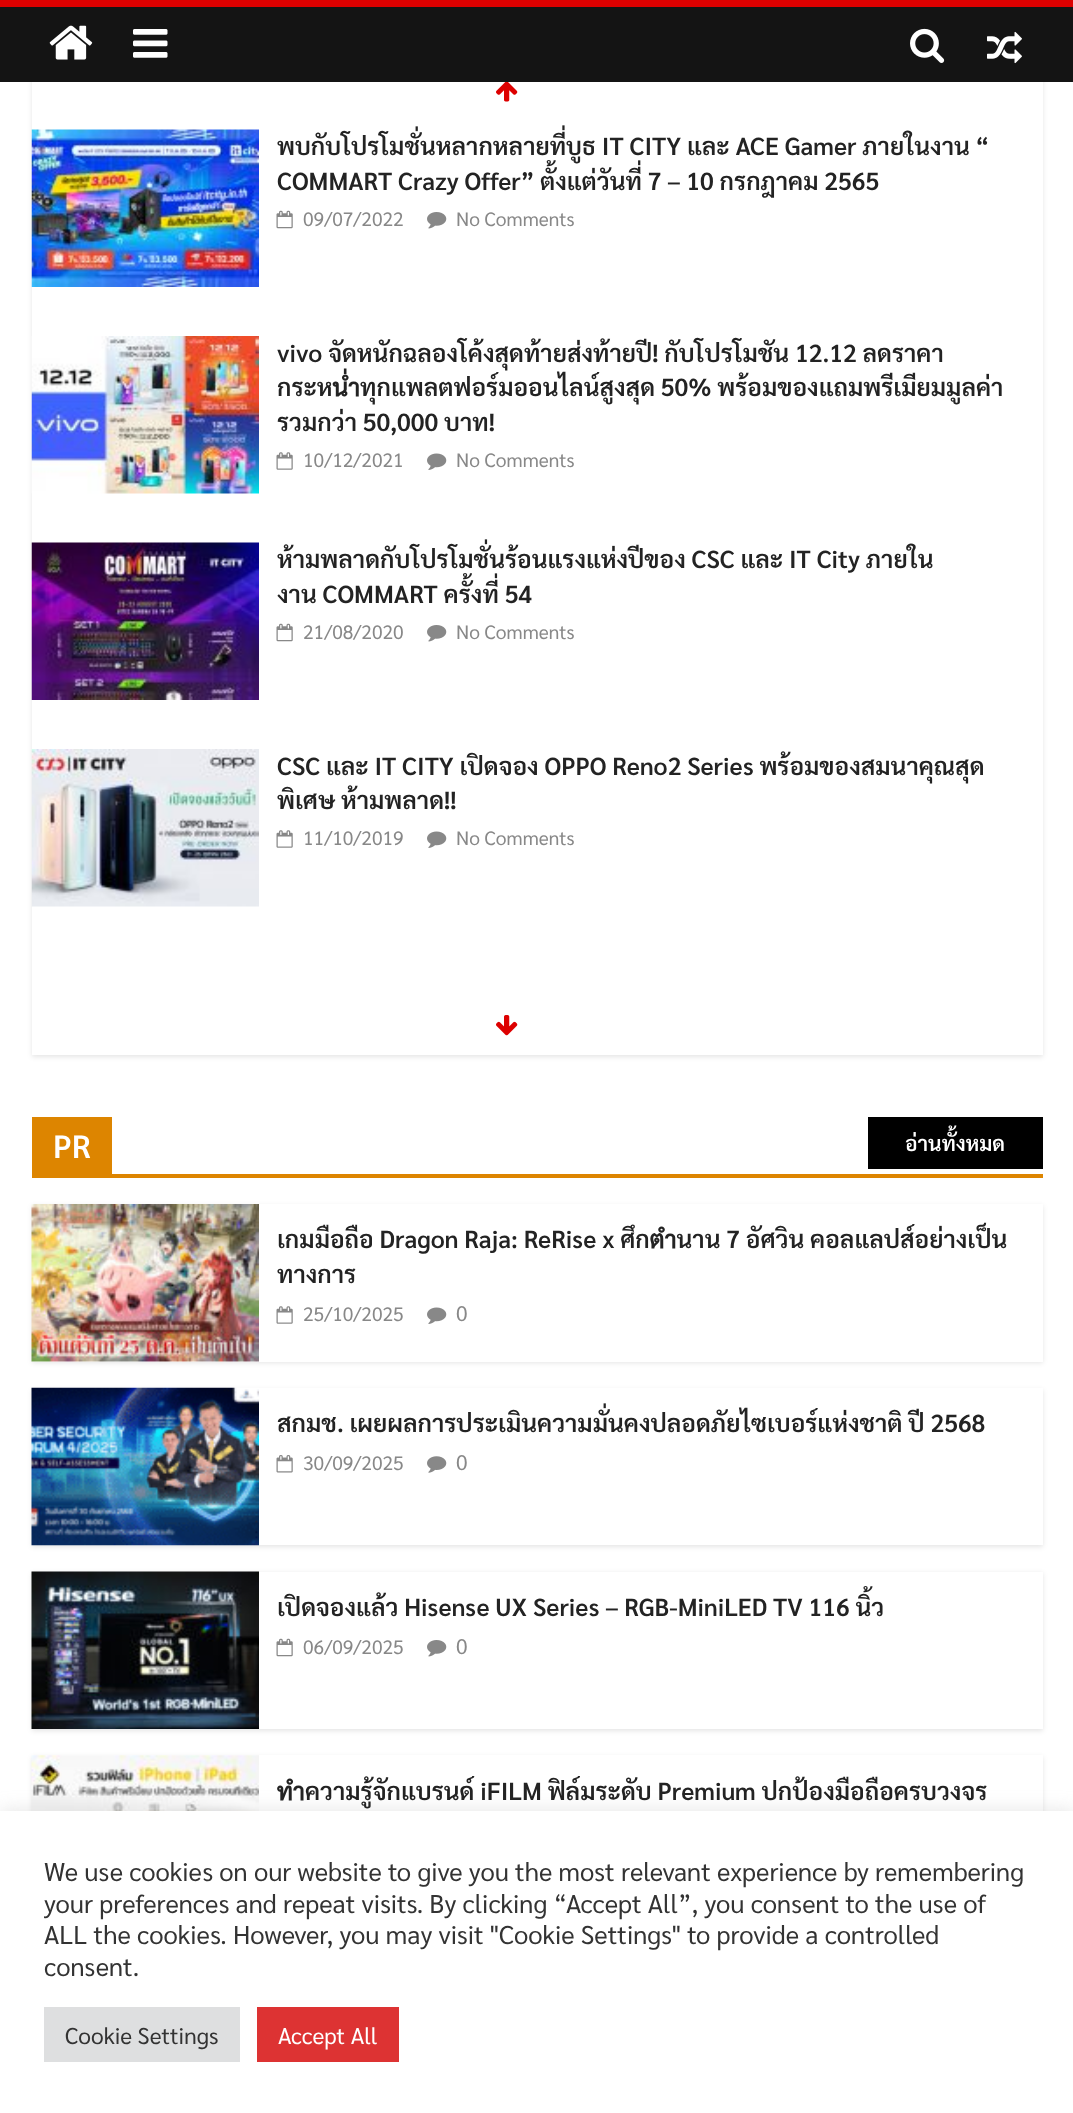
<?xml version="1.0" encoding="UTF-8"?>
<svg xmlns="http://www.w3.org/2000/svg" xmlns:xlink="http://www.w3.org/1999/xlink" width="1073" height="2113">
  <defs>
    <clipPath id="clip1"><path d="M 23 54 h 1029 v 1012 h -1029 z m 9 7 h 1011 v 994 h -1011 z" clip-rule="evenodd" /></clipPath>
    <clipPath id="clip2"><path d="M 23 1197 h 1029 v 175 h -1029 z m 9 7 h 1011 v 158 h -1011 z" clip-rule="evenodd" /></clipPath>
    <clipPath id="clip3"><path d="M 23 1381 h 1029 v 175 h -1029 z m 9 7 h 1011 v 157 h -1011 z" clip-rule="evenodd" /></clipPath>
    <clipPath id="clip4"><path d="M 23 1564 h 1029 v 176 h -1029 z m 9 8 h 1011 v 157 h -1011 z" clip-rule="evenodd" /></clipPath>
    <clipPath id="clip5"><path d="M 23 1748 h 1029 v 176 h -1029 z m 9 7 h 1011 v 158 h -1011 z" clip-rule="evenodd" /></clipPath>
  </defs>
  <rect width="100%" height="100%" fill="#ffffff" />
  <g clip-path="url(#clip1)">
    <rect x="32" y="63" width="1011" height="994" fill="#000000" fill-opacity="0.1" filter="blur(2.5px)" />
  </g>
  <rect y="7" width="1073" height="75" fill="#141414" />
  <rect width="1073" height="7" fill="#dd0000" />
  <image x="49" y="25" width="44" height="35" xlink:href="image1.png" />
  <image x="133" y="29" width="35" height="29" xlink:href="image2.png" />
  <image x="910" y="28" width="35" height="35" xlink:href="image3.png" />
  <image x="987" y="31" width="35" height="33" xlink:href="image4.png" />
  <image x="496" y="82" width="22" height="20" xlink:href="image5.png" />
  <image x="31" y="129" width="228" height="158" xlink:href="image6.png" />
  <image x="276" y="210" width="17" height="19" xlink:href="image7.png" />
  <image x="427" y="212" width="20" height="17" xlink:href="image8.png" />
  <image x="31" y="336" width="228" height="158" xlink:href="image9.png" />
  <image x="276" y="452" width="17" height="18" xlink:href="image10.png" />
  <image x="427" y="453" width="20" height="17" xlink:href="image11.png" />
  <image x="31" y="542" width="228" height="158" xlink:href="image12.png" />
  <image x="276" y="623" width="17" height="19" xlink:href="image7.png" />
  <image x="427" y="625" width="20" height="17" xlink:href="image13.png" />
  <image x="31" y="749" width="228" height="158" xlink:href="image14.png" />
  <image x="276" y="830" width="17" height="18" xlink:href="image10.png" />
  <image x="427" y="831" width="20" height="17" xlink:href="image11.png" />
  <image x="496" y="1015" width="22" height="21" xlink:href="image15.png" />
  <rect x="32" y="1174" width="1011" height="4" fill="#dd8500" />
  <rect x="32" y="1117" width="80" height="57" fill="#dd8500" />
  <rect x="868" y="1117" width="175" height="52" fill="#000000" />
  <g clip-path="url(#clip2)">
    <rect x="32" y="1206" width="1011" height="157" fill="#000000" fill-opacity="0.1" filter="blur(2.5px)" />
  </g>
  <image x="31" y="1204" width="228" height="158" xlink:href="image16.png" />
  <image x="276" y="1306" width="17" height="18" xlink:href="image10.png" />
  <image x="427" y="1307" width="20" height="17" xlink:href="image11.png" />
  <g clip-path="url(#clip3)">
    <rect x="32" y="1390" width="1011" height="157" fill="#000000" fill-opacity="0.1" filter="blur(2.5px)" />
  </g>
  <image x="31" y="1387" width="228" height="159" xlink:href="image17.png" />
  <image x="276" y="1455" width="17" height="18" xlink:href="image18.png" />
  <image x="427" y="1456" width="20" height="17" xlink:href="image19.png" />
  <g clip-path="url(#clip4)">
    <rect x="32" y="1573" width="1011" height="158" fill="#000000" fill-opacity="0.1" filter="blur(2.5px)" />
  </g>
  <image x="31" y="1571" width="228" height="158" xlink:href="image20.png" />
  <image x="276" y="1638" width="17" height="19" xlink:href="image7.png" />
  <image x="427" y="1640" width="20" height="17" xlink:href="image13.png" />
  <g clip-path="url(#clip5)">
    <rect x="32" y="1757" width="1011" height="158" fill="#000000" fill-opacity="0.1" filter="blur(2.5px)" />
  </g>
  <image x="31" y="1755" width="228" height="56" xlink:href="image21.png" />
  <rect y="1810" width="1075" height="302" fill="#acabab" fill-opacity="0.3" filter="blur(9px)" />
  <rect y="1811" width="1073" height="302" fill="#ffffff" />
  <rect x="44" y="2007" width="196" height="55" fill="#dedfe0" />
  <rect x="257" y="2007" width="142" height="55" fill="#dd3333" />
  <text x="277" y="155" style="font-family: Sarabun; font-size: 24.5px; font-weight: 600; fill: #232323">พบกับโปรโมชั่นหลากหลายที่บูธ IT CITY และ ACE Gamer ภายในงาน “</text>
  <text x="277" y="190" style="font-family: Sarabun; font-size: 24.5px; font-weight: 600; fill: #232323">COMMART Crazy Offer” ตั้งแต่วันที่ 7 – 10 กรกฎาคม 2565</text>
  <text x="303" y="226" style="font-family: Sarabun; font-size: 19.25px; fill: #888888">09/07/2022</text>
  <text x="456" y="226" style="font-family: Sarabun; font-size: 19.25px; fill: #888888">No Comments</text>
  <text x="277" y="362" style="font-family: Sarabun; font-size: 24.5px; font-weight: 600; fill: #232323">vivo จัดหนักฉลองโค้งสุดท้ายส่งท้ายปี! กับโปรโมชัน 12.12 ลดราคา</text>
  <text x="277" y="396" style="font-family: Sarabun; font-size: 24.5px; font-weight: 600; fill: #232323">กระหน่ำทุกแพลตฟอร์มออนไลน์สูงสุด 50% พร้อมของแถมพรีเมียมมูลค่า</text>
  <text x="277" y="431" style="font-family: Sarabun; font-size: 24.5px; font-weight: 600; fill: #232323">รวมกว่า 50,000 บาท!</text>
  <text x="303" y="467" style="font-family: Sarabun; font-size: 19.25px; fill: #888888">10/12/2021</text>
  <text x="456" y="467" style="font-family: Sarabun; font-size: 19.25px; fill: #888888">No Comments</text>
  <text x="277" y="568" style="font-family: Sarabun; font-size: 24.5px; font-weight: 600; fill: #232323">ห้ามพลาดกับโปรโมชั่นร้อนแรงแห่งปีของ CSC และ IT City ภายใน</text>
  <text x="277" y="603" style="font-family: Sarabun; font-size: 24.5px; font-weight: 600; fill: #232323">งาน COMMART ครั้งที่ 54</text>
  <text x="303" y="639" style="font-family: Sarabun; font-size: 19.25px; fill: #888888">21/08/2020</text>
  <text x="456" y="639" style="font-family: Sarabun; font-size: 19.25px; fill: #888888">No Comments</text>
  <text x="277" y="775" style="font-family: Sarabun; font-size: 24.5px; font-weight: 600; fill: #232323">CSC และ IT CITY เปิดจอง OPPO Reno2 Series พร้อมของสมนาคุณสุด</text>
  <text x="277" y="809" style="font-family: Sarabun; font-size: 24.5px; font-weight: 600; fill: #232323">พิเศษ ห้ามพลาด!!</text>
  <text x="303" y="845" style="font-family: Sarabun; font-size: 19.25px; fill: #888888">11/10/2019</text>
  <text x="456" y="845" style="font-family: Sarabun; font-size: 19.25px; fill: #888888">No Comments</text>
  <text x="53" y="1158" style="font-family: Sarabun; font-size: 32px; font-weight: 600; fill: #ffffff">PR</text>
  <text x="905" y="1151" style="font-family: Sarabun; font-size: 21px; font-weight: 600; fill: #ffffff">อ่านทั้งหมด</text>
  <text x="277" y="1248" style="font-family: Sarabun; font-size: 24.5px; font-weight: 600; fill: #232323">เกมมือถือ Dragon Raja: ReRise x ศึกตำนาน 7 อัศวิน คอลแลปส์อย่างเป็น</text>
  <text x="277" y="1283" style="font-family: Sarabun; font-size: 24.5px; font-weight: 600; fill: #232323">ทางการ</text>
  <text x="303" y="1321" style="font-family: Sarabun; font-size: 19.25px; fill: #888888">25/10/2025</text>
  <text x="456" y="1321" style="font-family: Sarabun; font-size: 21px; fill: #888888">0</text>
  <text x="277" y="1432" style="font-family: Sarabun; font-size: 24.5px; font-weight: 600; fill: #232323">สกมช. เผยผลการประเมินความมั่นคงปลอดภัยไซเบอร์แห่งชาติ ปี 2568</text>
  <text x="303" y="1470" style="font-family: Sarabun; font-size: 19.25px; fill: #888888">30/09/2025</text>
  <text x="456" y="1470" style="font-family: Sarabun; font-size: 21px; fill: #888888">0</text>
  <text x="277" y="1616" style="font-family: Sarabun; font-size: 24.5px; font-weight: 600; fill: #232323">เปิดจองแล้ว Hisense UX Series – RGB-MiniLED TV 116 นิ้ว</text>
  <text x="303" y="1654" style="font-family: Sarabun; font-size: 19.25px; fill: #888888">06/09/2025</text>
  <text x="456" y="1654" style="font-family: Sarabun; font-size: 21px; fill: #888888">0</text>
  <text x="277" y="1800" style="font-family: Sarabun; font-size: 24.5px; font-weight: 600; fill: #232323">ทำความรู้จักแบรนด์ iFILM ฟิล์มระดับ Premium ปกป้องมือถือครบวงจร</text>
  <text x="44" y="1881" style="font-family: Sarabun; font-size: 25.65px; fill: #333333">We use cookies on our website to give you the most relevant experience by remembering</text>
  <text x="44" y="1913" style="font-family: Sarabun; font-size: 25.65px; fill: #333333">your preferences and repeat visits. By clicking “Accept All”, you consent to the use of</text>
  <text x="44" y="1944" style="font-family: Sarabun; font-size: 25.65px; fill: #333333">ALL the cookies. However, you may visit "Cookie Settings" to provide a controlled</text>
  <text x="44" y="1976" style="font-family: Sarabun; font-size: 25.65px; fill: #333333">consent.</text>
  <text x="65" y="2044" style="font-family: Sarabun; font-size: 22.75px; fill: #333333">Cookie Settings</text>
  <text x="278" y="2044" style="font-family: Sarabun; font-size: 22.75px; fill: #ffffff">Accept All</text>
</svg>
